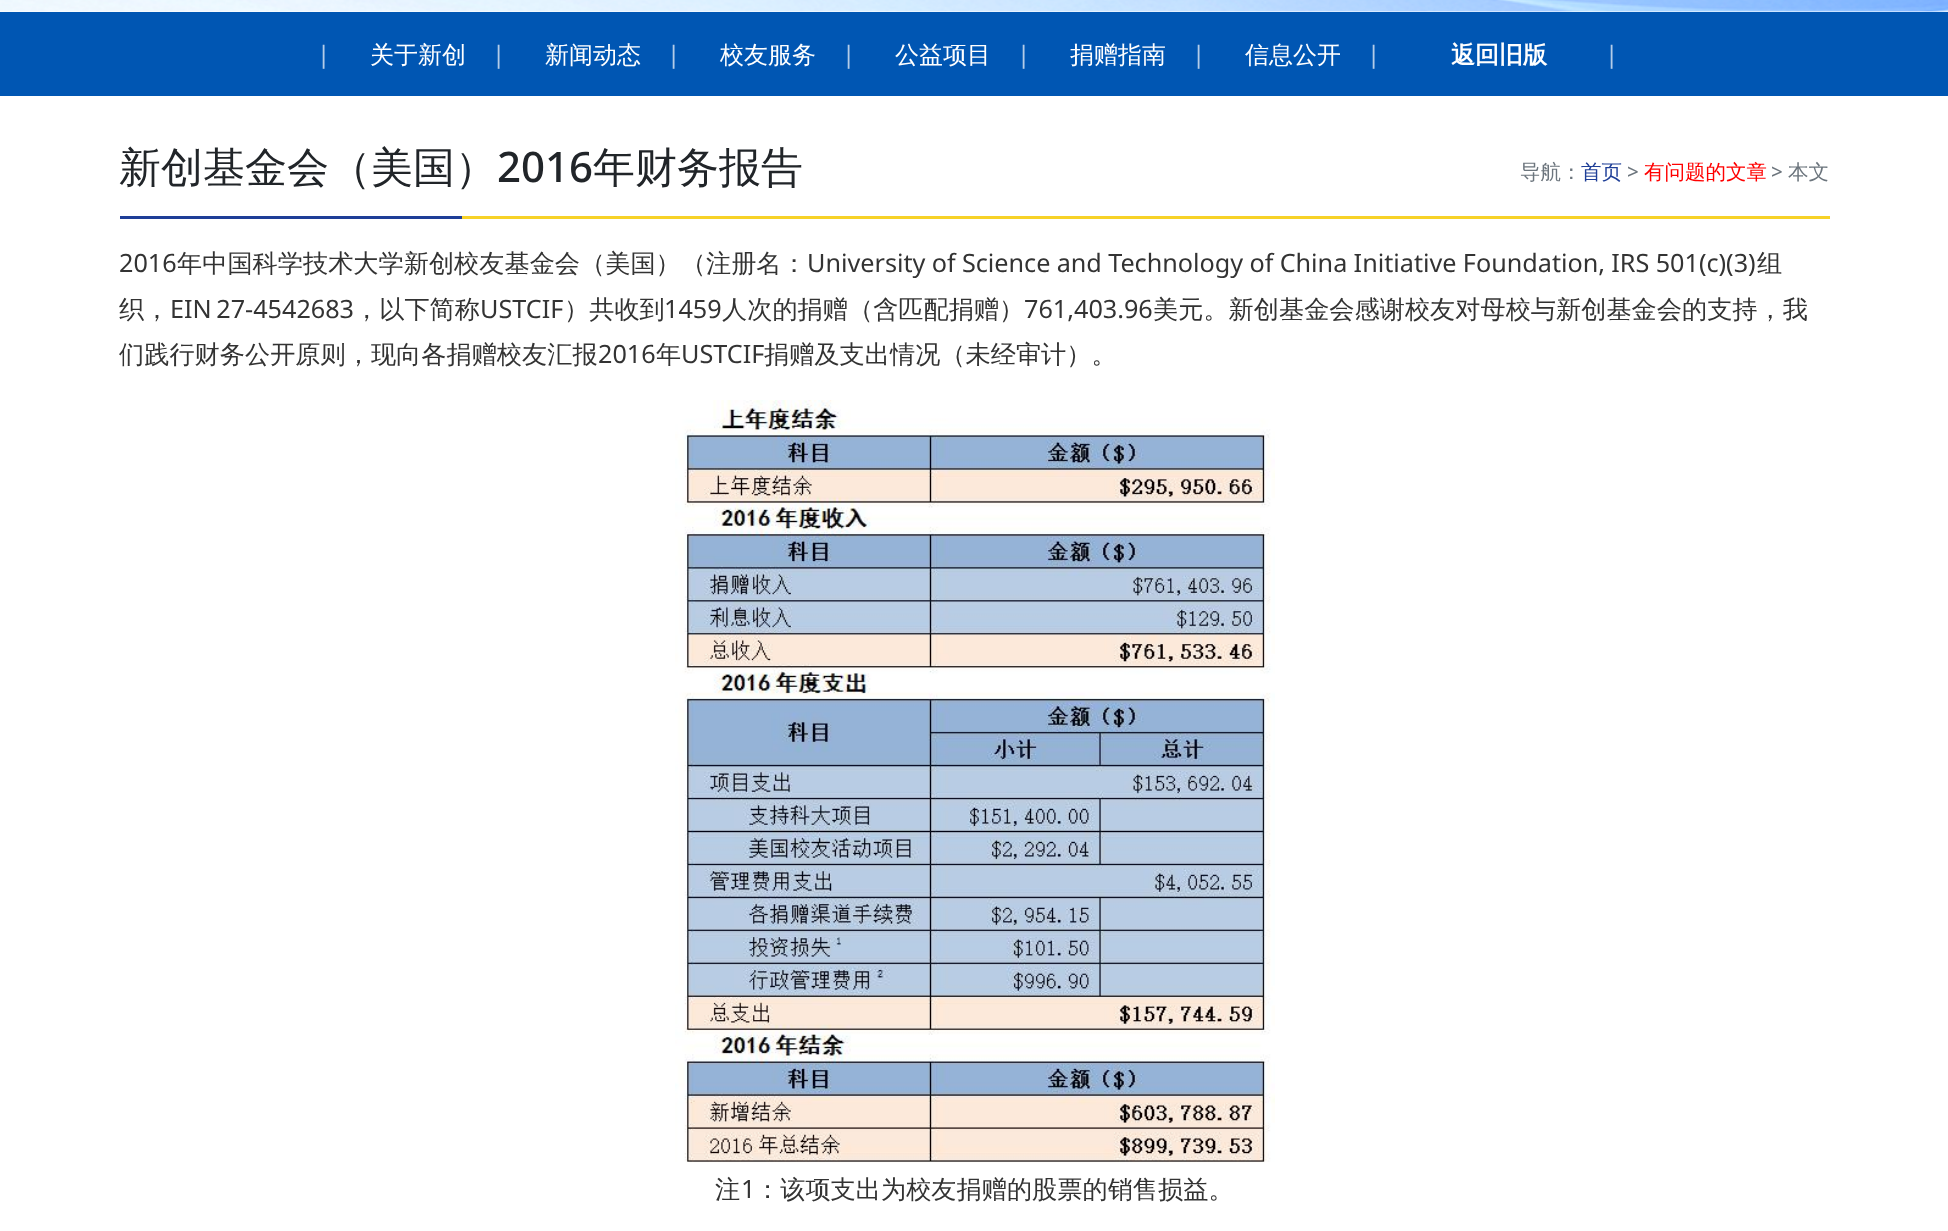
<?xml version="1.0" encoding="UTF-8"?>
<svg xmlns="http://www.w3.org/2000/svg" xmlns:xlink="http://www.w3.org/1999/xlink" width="1948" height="1231">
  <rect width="100%" height="100%" fill="#ffffff" />
  <image x="0" y="0" width="1948" height="12" xlink:href="image1.png" />
  <rect y="12" width="1948" height="84" fill="#0056b3" />
  <rect x="120" y="216" width="342" height="3" fill="#1e3e97" />
  <rect x="462" y="216" width="1368" height="3" fill="#f7d228" />
  <image x="675" y="400" width="600" height="763" xlink:href="image2.png" />
  <text x="317" y="63" style="font-family: Noto Sans; font-size: 24px; fill: #b3cce8">|</text>
  <text x="370" y="63" style="font-family: WenQuanYi Zen Hei; font-size: 24px; font-weight: 500; fill: #ffffff">关于新创</text>
  <text x="492" y="63" style="font-family: Noto Sans; font-size: 24px; fill: #b3cce8">|</text>
  <text x="545" y="63" style="font-family: WenQuanYi Zen Hei; font-size: 24px; font-weight: 500; fill: #ffffff">新闻动态</text>
  <text x="667" y="63" style="font-family: Noto Sans; font-size: 24px; fill: #b3cce8">|</text>
  <text x="720" y="63" style="font-family: WenQuanYi Zen Hei; font-size: 24px; font-weight: 500; fill: #ffffff">校友服务</text>
  <text x="842" y="63" style="font-family: Noto Sans; font-size: 24px; fill: #b3cce8">|</text>
  <text x="895" y="63" style="font-family: WenQuanYi Zen Hei; font-size: 24px; font-weight: 500; fill: #ffffff">公益项目</text>
  <text x="1017" y="63" style="font-family: Noto Sans; font-size: 24px; fill: #b3cce8">|</text>
  <text x="1070" y="63" style="font-family: WenQuanYi Zen Hei; font-size: 24px; font-weight: 500; fill: #ffffff">捐赠指南</text>
  <text x="1192" y="63" style="font-family: Noto Sans; font-size: 24px; fill: #b3cce8">|</text>
  <text x="1245" y="63" style="font-family: WenQuanYi Zen Hei; font-size: 24px; font-weight: 500; fill: #ffffff">信息公开</text>
  <text x="1367" y="63" style="font-family: Noto Sans; font-size: 24px; fill: #b3cce8">|</text>
  <text x="1451" y="63" style="font-family: WenQuanYi Zen Hei; font-size: 24px; font-weight: bold; fill: #ffffff">返回旧版</text>
  <text x="1605" y="63" style="font-family: Noto Sans; font-size: 24px; fill: #b3cce8">|</text>
  <text x="119" y="182" style="font-family: WenQuanYi Zen Hei; font-size: 42px; font-weight: 500; fill: #212529">新创基金会（美国）</text>
  <text x="497" y="182" style="font-family: Noto Sans; font-size: 42px; font-weight: 500; fill: #212529">2016</text>
  <text x="593" y="182" style="font-family: WenQuanYi Zen Hei; font-size: 42px; font-weight: 500; fill: #212529">年财务报告</text>
  <text x="1520" y="179" style="font-family: WenQuanYi Zen Hei; font-size: 20.5px; font-weight: 500; fill: #6c757d">导航：</text>
  <text x="1581" y="179" style="font-family: WenQuanYi Zen Hei; font-size: 20.5px; font-weight: 500; fill: #1e3e97">首页</text>
  <text x="1627" y="179" style="font-family: Noto Sans; font-size: 20.5px; fill: #6c757d">&gt;</text>
  <text x="1644" y="179" style="font-family: WenQuanYi Zen Hei; font-size: 20.5px; font-weight: 500; fill: #ff0000">有问题的文章</text>
  <text x="1771" y="179" style="font-family: Noto Sans; font-size: 20.5px; fill: #6c757d">&gt;</text>
  <text x="1788" y="179" style="font-family: WenQuanYi Zen Hei; font-size: 20.5px; font-weight: 500; fill: #6c757d">本文</text>
  <text x="119" y="272" style="font-family: Noto Sans; font-size: 25.2px; fill: #333333">2016</text>
  <text x="177" y="272" style="font-family: WenQuanYi Zen Hei; font-size: 25.2px; font-weight: 500; fill: #333333">年中国科学技术大学新创校友基金会（美国）（注册名：</text>
  <text x="807" y="272" word-spacing="-0.25" style="font-family: Noto Sans; font-size: 25.2px; fill: #333333">University of Science and Technology of China Initiative Foundation, IRS 501(c)(3)</text>
  <text x="1757" y="272" style="font-family: WenQuanYi Zen Hei; font-size: 25.2px; font-weight: 500; fill: #333333">组</text>
  <text x="119" y="318" style="font-family: WenQuanYi Zen Hei; font-size: 25.2px; font-weight: 500; fill: #333333">织，</text>
  <text x="170" y="318" word-spacing="-2" style="font-family: Noto Sans; font-size: 25.2px; fill: #333333">EIN 27-4542683</text>
  <text x="354" y="318" style="font-family: WenQuanYi Zen Hei; font-size: 25.2px; font-weight: 500; fill: #333333">，以下简称</text>
  <text x="480" y="318" style="font-family: Noto Sans; font-size: 25.2px; fill: #333333">USTCIF</text>
  <text x="564" y="318" style="font-family: WenQuanYi Zen Hei; font-size: 25.2px; font-weight: 500; fill: #333333">）共收到</text>
  <text x="664" y="318" style="font-family: Noto Sans; font-size: 25.2px; fill: #333333">1459</text>
  <text x="722" y="318" style="font-family: WenQuanYi Zen Hei; font-size: 25.2px; font-weight: 500; fill: #333333">人次的捐赠（含匹配捐赠）</text>
  <text x="1024" y="318" style="font-family: Noto Sans; font-size: 25.2px; fill: #333333">761,403.96</text>
  <text x="1153" y="318" style="font-family: WenQuanYi Zen Hei; font-size: 25.2px; font-weight: 500; fill: #333333">美元。新创基金会感谢校友对母校与新创基金会的支持，我</text>
  <text x="119" y="363" style="font-family: WenQuanYi Zen Hei; font-size: 25.2px; font-weight: 500; fill: #333333">们践行财务公开原则，现向各捐赠校友汇报</text>
  <text x="598" y="363" style="font-family: Noto Sans; font-size: 25.2px; fill: #333333">2016</text>
  <text x="656" y="363" style="font-family: WenQuanYi Zen Hei; font-size: 25.2px; font-weight: 500; fill: #333333">年</text>
  <text x="681" y="363" style="font-family: Noto Sans; font-size: 25.2px; fill: #333333">USTCIF</text>
  <text x="764" y="363" style="font-family: WenQuanYi Zen Hei; font-size: 25.2px; font-weight: 500; fill: #333333">捐赠及支出情况（未经审计）。</text>
  <text x="715" y="1198" style="font-family: WenQuanYi Zen Hei; font-size: 25.2px; font-weight: 500; fill: #333333">注</text>
  <text x="741" y="1198" style="font-family: Noto Sans; font-size: 25.2px; fill: #333333">1</text>
  <text x="755" y="1198" style="font-family: WenQuanYi Zen Hei; font-size: 25.2px; font-weight: 500; fill: #333333">：该项支出为校友捐赠的股票的销售损益。</text>
</svg>
